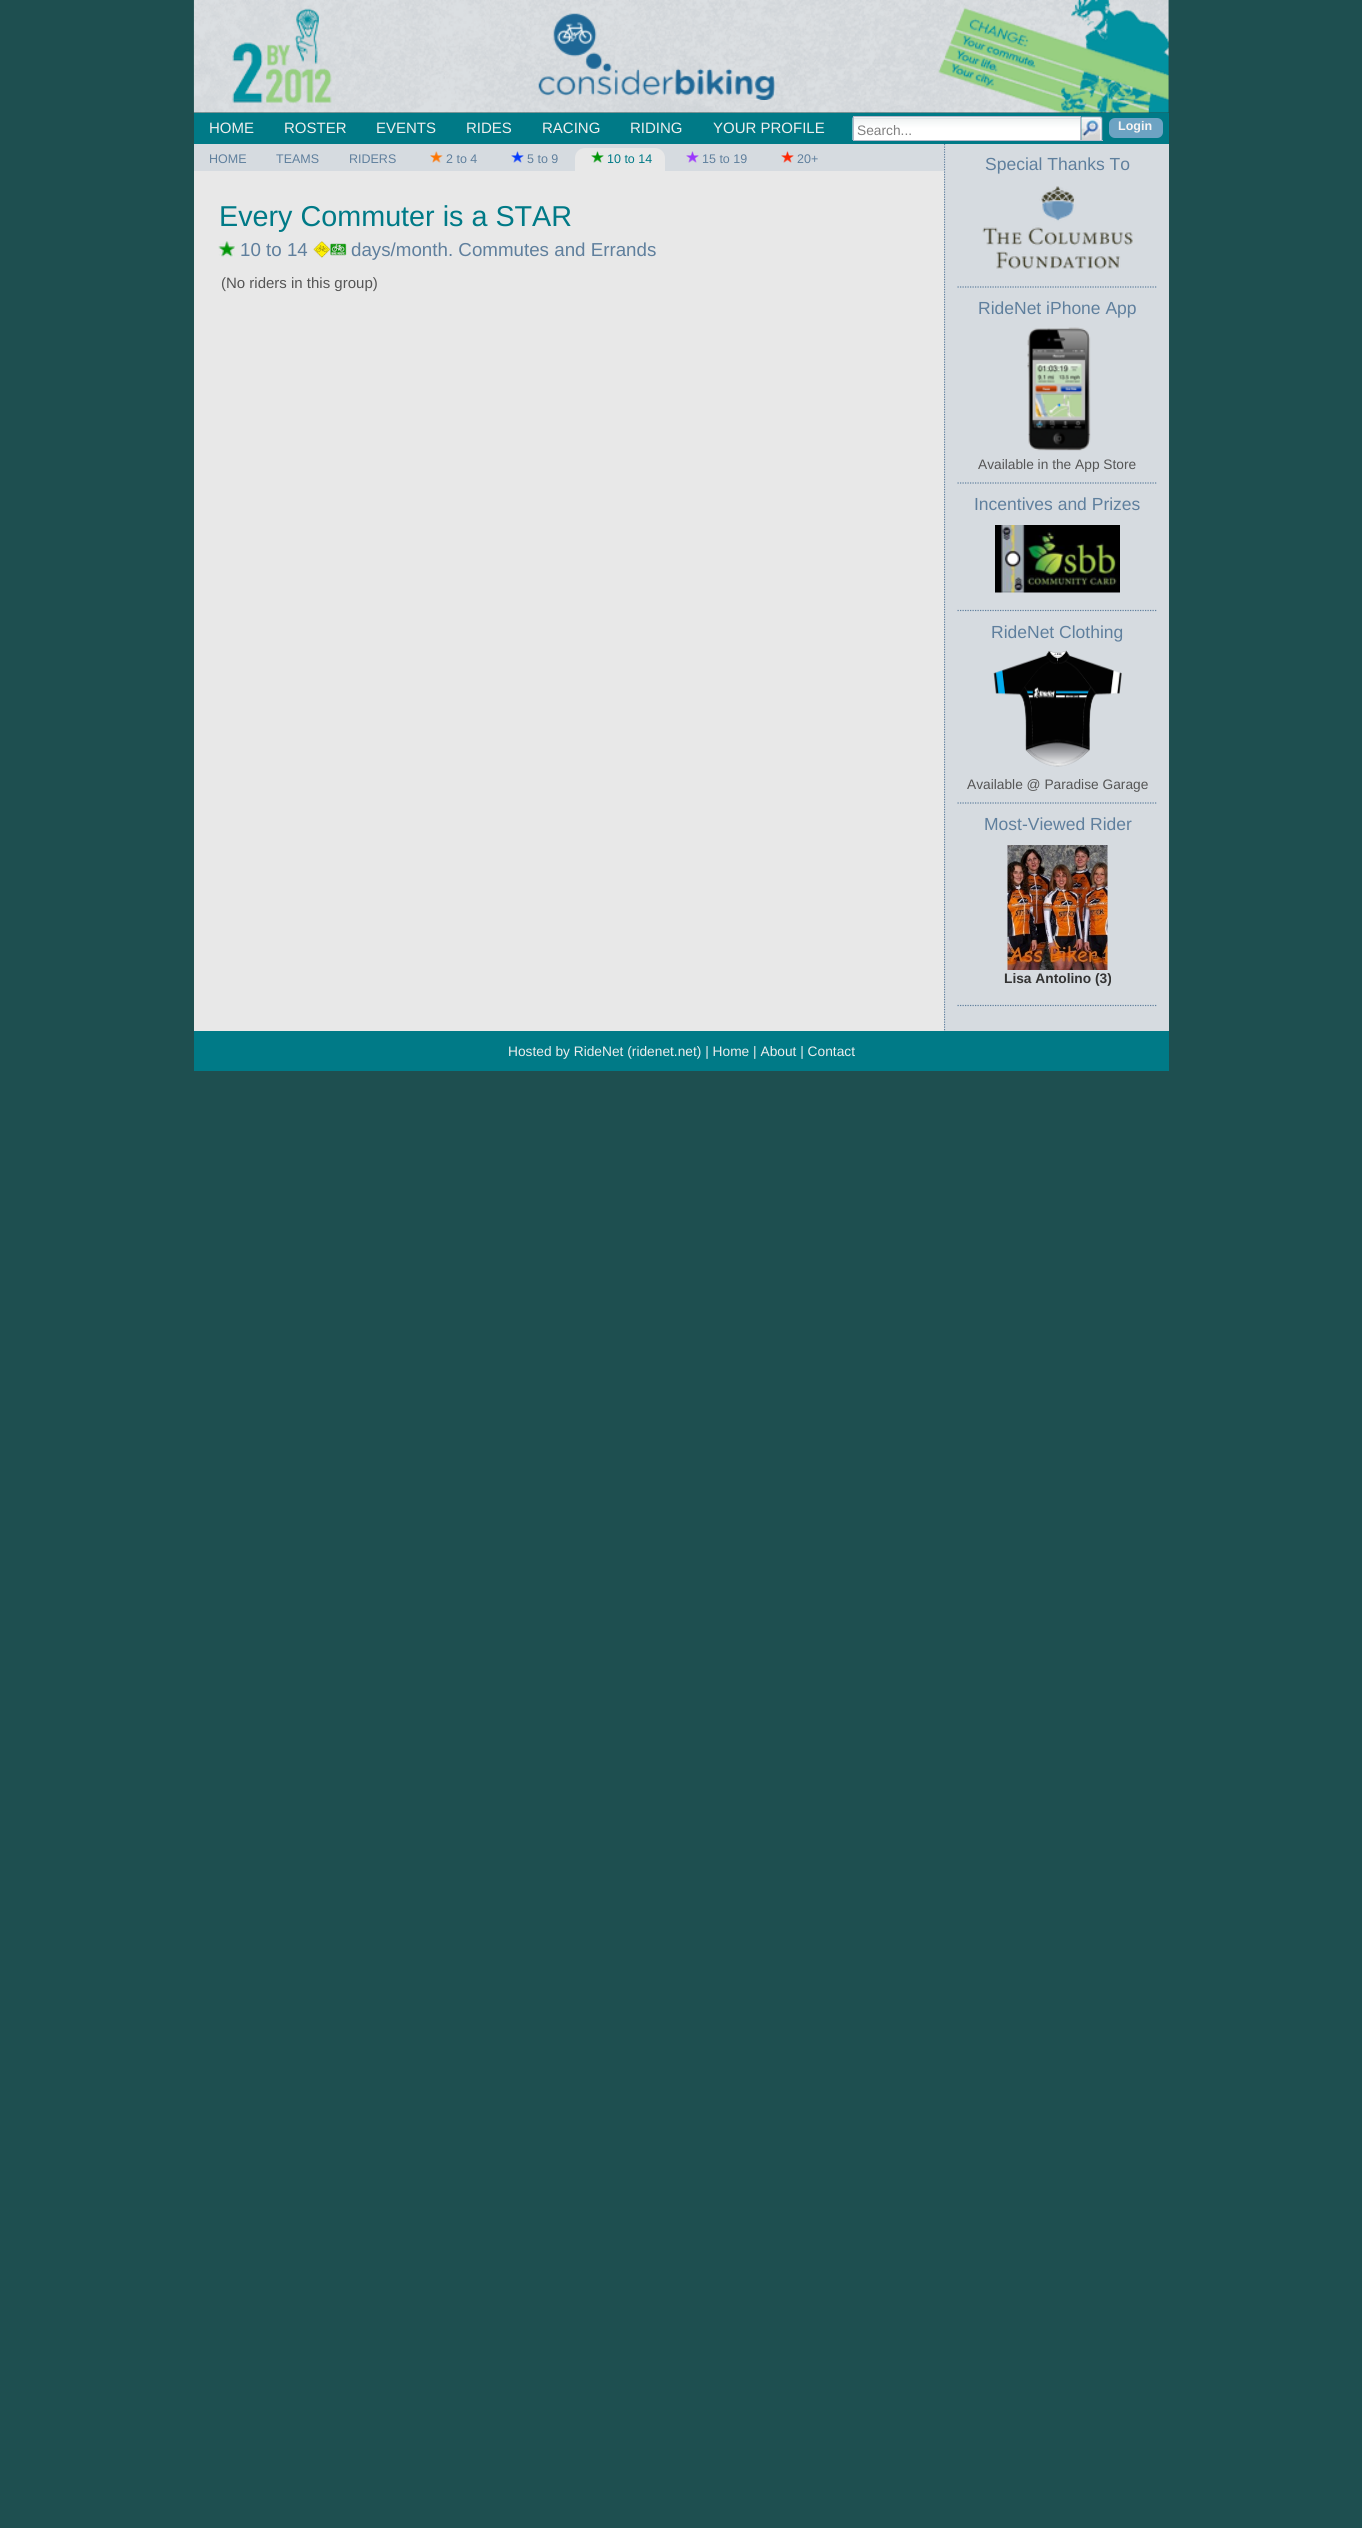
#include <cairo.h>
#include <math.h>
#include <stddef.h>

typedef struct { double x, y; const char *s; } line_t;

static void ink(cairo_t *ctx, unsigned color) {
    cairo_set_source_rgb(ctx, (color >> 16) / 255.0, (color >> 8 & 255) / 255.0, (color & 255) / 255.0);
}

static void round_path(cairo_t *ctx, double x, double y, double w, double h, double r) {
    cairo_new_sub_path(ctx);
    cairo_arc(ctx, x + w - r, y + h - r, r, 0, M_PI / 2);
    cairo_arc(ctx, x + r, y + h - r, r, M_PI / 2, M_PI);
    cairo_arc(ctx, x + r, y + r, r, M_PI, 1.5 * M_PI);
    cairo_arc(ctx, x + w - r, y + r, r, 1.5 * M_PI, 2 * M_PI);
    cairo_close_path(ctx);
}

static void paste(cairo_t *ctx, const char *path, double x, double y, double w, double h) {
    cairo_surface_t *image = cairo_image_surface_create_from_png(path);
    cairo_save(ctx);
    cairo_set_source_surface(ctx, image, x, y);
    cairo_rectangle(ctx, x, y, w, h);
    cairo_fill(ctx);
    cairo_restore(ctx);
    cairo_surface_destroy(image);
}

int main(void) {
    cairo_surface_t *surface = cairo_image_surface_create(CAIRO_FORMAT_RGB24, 1362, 2528);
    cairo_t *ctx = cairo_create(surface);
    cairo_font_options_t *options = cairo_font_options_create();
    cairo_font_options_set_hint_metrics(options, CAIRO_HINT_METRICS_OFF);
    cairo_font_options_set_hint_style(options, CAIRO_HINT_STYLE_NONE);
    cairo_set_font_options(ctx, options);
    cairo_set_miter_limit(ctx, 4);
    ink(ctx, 0x1E4F50);
    cairo_paint(ctx);
    paste(ctx, "media/1.png", 193, 0, 976, 113);
    paste(ctx, "media/2.png", 538, 13, 237, 87);
    ink(ctx, 0x007A87);
    cairo_rectangle(ctx, 194, 113, 975, 31);
    cairo_fill(ctx);
    cairo_select_font_face(ctx, "Liberation Sans", CAIRO_FONT_SLANT_NORMAL, CAIRO_FONT_WEIGHT_NORMAL);
    cairo_set_font_size(ctx, 15);
    ink(ctx, 0xEEEEEE);
    {
        static const line_t items[] = {
            {209, 133, "HOME"},
            {284, 133, "ROSTER"},
            {376, 133, "EVENTS"},
            {466, 133, "RIDES"},
            {542, 133, "RACING"},
            {630, 133, "RIDING"},
            {713, 133, "YOUR PROFILE"},
        };
        for (size_t i = 0; i < sizeof items / sizeof *items; i++) {
            cairo_move_to(ctx, items[i].x, items[i].y);
            cairo_show_text(ctx, items[i].s);
        }
    }
    ink(ctx, 0xFFFFFF);
    cairo_rectangle(ctx, 854, 117, 226, 1);
    cairo_fill(ctx);
    paste(ctx, "media/3.png", 852, 117, 230, 23);
    cairo_rectangle(ctx, 853.5, 116.5, 227, 24);
    ink(ctx, 0xB5B8C8);
    cairo_set_line_width(ctx, 1);
    cairo_stroke(ctx);
    cairo_set_font_size(ctx, 13.75);
    ink(ctx, 0x808080);
    cairo_move_to(ctx, 857, 135);
    cairo_show_text(ctx, "Search...");
    paste(ctx, "media/4.png", 1081, 116, 22, 24);
    ink(ctx, 0xB5B8C8);
    cairo_rectangle(ctx, 1081, 140, 22, 1);
    cairo_fill(ctx);
    ink(ctx, 0x6DA3C3);
    round_path(ctx, 1109, 118, 54, 20, 6);
    cairo_fill(ctx);
    cairo_select_font_face(ctx, "Liberation Sans", CAIRO_FONT_SLANT_NORMAL, CAIRO_FONT_WEIGHT_BOLD);
    cairo_set_font_size(ctx, 12.5);
    ink(ctx, 0xF8F4F3);
    cairo_move_to(ctx, 1118, 130);
    cairo_show_text(ctx, "Login");
    ink(ctx, 0xD6DBE0);
    cairo_rectangle(ctx, 944, 144, 225, 887);
    cairo_fill(ctx);
    cairo_save(ctx);
    cairo_rectangle(ctx, 194, 0, 975, 1071);
    cairo_clip(ctx);
    cairo_new_path(ctx);
    cairo_move_to(ctx, 944.5, 144);
    cairo_line_to(ctx, 944.5, 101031);
    ink(ctx, 0x5F7F9D);
    cairo_set_line_width(ctx, 1.2);
    cairo_set_dash(ctx, (double[]){1.25, 1.25}, 2, 0);
    cairo_stroke(ctx);
    cairo_restore(ctx);
    cairo_rectangle(ctx, 194, 144, 750, 27);
    cairo_fill(ctx);
    cairo_select_font_face(ctx, "Liberation Sans", CAIRO_FONT_SLANT_NORMAL, CAIRO_FONT_WEIGHT_NORMAL);
    ink(ctx, 0x5F7F9D);
    {
        static const line_t items[] = {
            {209, 163, "HOME"},
            {276, 163, "TEAMS"},
            {349, 163, "RIDERS"},
        };
        for (size_t i = 0; i < sizeof items / sizeof *items; i++) {
            cairo_move_to(ctx, items[i].x, items[i].y);
            cairo_show_text(ctx, items[i].s);
        }
    }
    paste(ctx, "media/5.png", 430, 151, 13, 12);
    cairo_move_to(ctx, 446, 163);
    cairo_show_text(ctx, "2 to 4");
    paste(ctx, "media/6.png", 511, 151, 13, 12);
    cairo_move_to(ctx, 527, 163);
    cairo_show_text(ctx, "5 to 9");
    ink(ctx, 0xE8E8E8);
    cairo_new_path(ctx);
    cairo_move_to(ctx, 585, 148);
    cairo_line_to(ctx, 655, 148);
    cairo_curve_to(ctx, 660.5, 148, 665, 152.5, 665, 158);
    cairo_line_to(ctx, 665, 171);
    cairo_line_to(ctx, 575, 171);
    cairo_line_to(ctx, 575, 158);
    cairo_curve_to(ctx, 575, 152.5, 579.5, 148, 585, 148);
    cairo_close_path(ctx);
    cairo_fill(ctx);
    paste(ctx, "media/7.png", 591, 151, 13, 12);
    ink(ctx, 0x007A87);
    cairo_move_to(ctx, 607, 163);
    cairo_show_text(ctx, "10 to 14");
    paste(ctx, "media/8.png", 686, 151, 13, 12);
    ink(ctx, 0x5F7F9D);
    cairo_move_to(ctx, 702, 163);
    cairo_show_text(ctx, "15 to 19");
    paste(ctx, "media/9.png", 781, 151, 13, 12);
    cairo_move_to(ctx, 797, 163);
    cairo_show_text(ctx, "20+");
    cairo_new_path(ctx);
    cairo_move_to(ctx, 957.5, 287);
    cairo_line_to(ctx, 1157.5, 287);
    cairo_set_line_width(ctx, 1.2);
    cairo_set_dash(ctx, (double[]){1.25, 1.25}, 2, 0);
    cairo_stroke(ctx);
    cairo_set_font_size(ctx, 17.5);
    cairo_move_to(ctx, 985, 170);
    cairo_show_text(ctx, "Special Thanks To");
    paste(ctx, "media/10.png", 982, 186, 151, 83);
    cairo_new_path(ctx);
    cairo_move_to(ctx, 957.5, 483);
    cairo_line_to(ctx, 1157.5, 483);
    cairo_stroke(ctx);
    cairo_move_to(ctx, 978, 314);
    cairo_show_text(ctx, "RideNet iPhone App");
    paste(ctx, "media/11.png", 1027, 327, 64, 124);
    cairo_set_font_size(ctx, 13.75);
    ink(ctx, 0x555555);
    cairo_move_to(ctx, 978, 469);
    cairo_show_text(ctx, "Available in the App Store");
    cairo_new_path(ctx);
    cairo_move_to(ctx, 957.5, 610.5);
    cairo_line_to(ctx, 1157.5, 610.5);
    ink(ctx, 0x5F7F9D);
    cairo_stroke(ctx);
    cairo_set_font_size(ctx, 17.5);
    cairo_move_to(ctx, 974, 510);
    cairo_show_text(ctx, "Incentives and Prizes");
    paste(ctx, "media/12.png", 995, 525, 125, 68);
    cairo_new_path(ctx);
    cairo_move_to(ctx, 957.5, 803);
    cairo_line_to(ctx, 1157.5, 803);
    cairo_stroke(ctx);
    cairo_move_to(ctx, 991, 638);
    cairo_show_text(ctx, "RideNet Clothing");
    paste(ctx, "media/13.png", 993, 650, 129, 117);
    cairo_set_font_size(ctx, 13.75);
    ink(ctx, 0x555555);
    cairo_move_to(ctx, 967, 789);
    cairo_show_text(ctx, "Available @ Paradise Garage");
    cairo_new_path(ctx);
    cairo_move_to(ctx, 957.5, 1005.5);
    cairo_line_to(ctx, 1157.5, 1005.5);
    ink(ctx, 0x5F7F9D);
    cairo_stroke(ctx);
    cairo_set_font_size(ctx, 17.5);
    cairo_move_to(ctx, 984, 830);
    cairo_show_text(ctx, "Most-Viewed Rider");
    paste(ctx, "media/14.png", 1007, 845, 101, 125);
    cairo_select_font_face(ctx, "Liberation Sans", CAIRO_FONT_SLANT_NORMAL, CAIRO_FONT_WEIGHT_BOLD);
    cairo_set_font_size(ctx, 13.75);
    ink(ctx, 0x333333);
    cairo_move_to(ctx, 1004, 983);
    cairo_show_text(ctx, "Lisa Antolino (3)");
    ink(ctx, 0xE8E8E8);
    cairo_rectangle(ctx, 194, 171, 750, 860);
    cairo_fill(ctx);
    cairo_select_font_face(ctx, "Liberation Sans", CAIRO_FONT_SLANT_NORMAL, CAIRO_FONT_WEIGHT_NORMAL);
    cairo_set_font_size(ctx, 28.75);
    ink(ctx, 0x007A87);
    cairo_move_to(ctx, 219, 226);
    cairo_show_text(ctx, "Every Commuter is a STAR");
    paste(ctx, "media/15.png", 218, 241, 17, 16);
    cairo_set_font_size(ctx, 18.75);
    ink(ctx, 0x5F7F9D);
    cairo_move_to(ctx, 240, 256);
    cairo_show_text(ctx, "10 to 14");
    paste(ctx, "media/16.png", 313, 241, 17, 17);
    paste(ctx, "media/17.png", 330, 243, 17, 13);
    cairo_move_to(ctx, 351, 256);
    cairo_show_text(ctx, "days/month. Commutes and Errands");
    cairo_set_font_size(ctx, 15);
    ink(ctx, 0x555555);
    cairo_move_to(ctx, 221, 288);
    cairo_show_text(ctx, "(No riders in this group)");
    ink(ctx, 0x007A87);
    cairo_rectangle(ctx, 194, 1031, 975, 40);
    cairo_fill(ctx);
    cairo_set_font_size(ctx, 13.75);
    ink(ctx, 0xEEEEEE);
    cairo_move_to(ctx, 508, 1056);
    cairo_show_text(ctx, "Hosted by RideNet (ridenet.net) | Home | About | Contact");
    cairo_surface_write_to_png(surface, "image.png");
    cairo_font_options_destroy(options);
    cairo_destroy(ctx);
    cairo_surface_destroy(surface);
    return 0;
}
